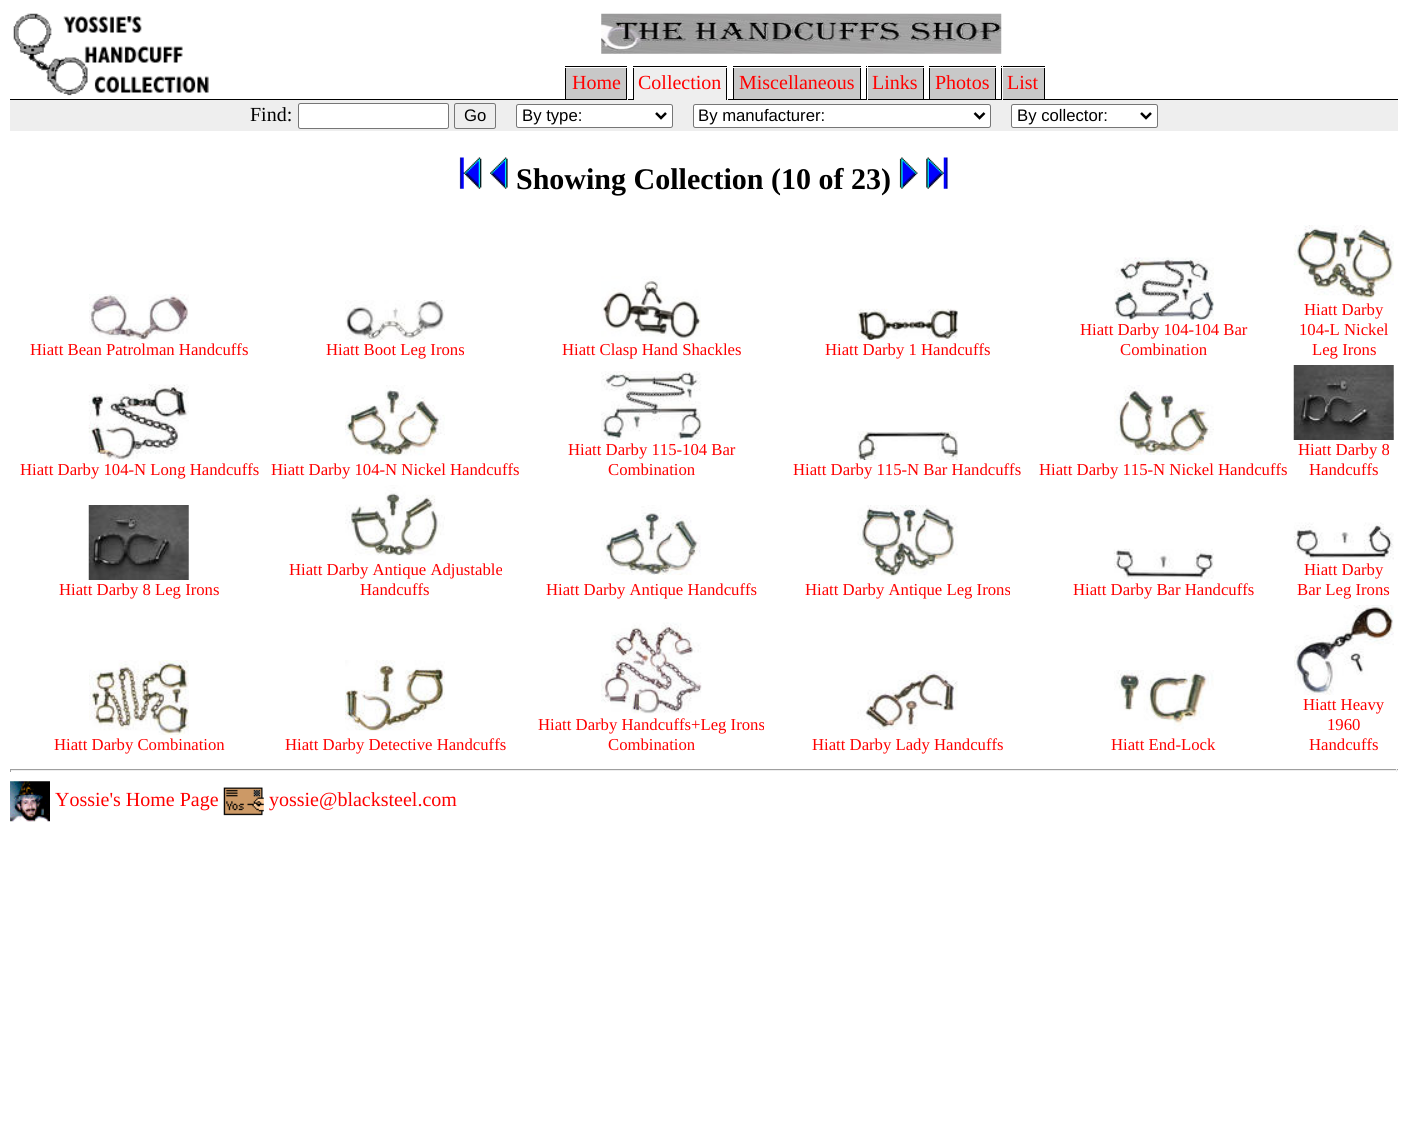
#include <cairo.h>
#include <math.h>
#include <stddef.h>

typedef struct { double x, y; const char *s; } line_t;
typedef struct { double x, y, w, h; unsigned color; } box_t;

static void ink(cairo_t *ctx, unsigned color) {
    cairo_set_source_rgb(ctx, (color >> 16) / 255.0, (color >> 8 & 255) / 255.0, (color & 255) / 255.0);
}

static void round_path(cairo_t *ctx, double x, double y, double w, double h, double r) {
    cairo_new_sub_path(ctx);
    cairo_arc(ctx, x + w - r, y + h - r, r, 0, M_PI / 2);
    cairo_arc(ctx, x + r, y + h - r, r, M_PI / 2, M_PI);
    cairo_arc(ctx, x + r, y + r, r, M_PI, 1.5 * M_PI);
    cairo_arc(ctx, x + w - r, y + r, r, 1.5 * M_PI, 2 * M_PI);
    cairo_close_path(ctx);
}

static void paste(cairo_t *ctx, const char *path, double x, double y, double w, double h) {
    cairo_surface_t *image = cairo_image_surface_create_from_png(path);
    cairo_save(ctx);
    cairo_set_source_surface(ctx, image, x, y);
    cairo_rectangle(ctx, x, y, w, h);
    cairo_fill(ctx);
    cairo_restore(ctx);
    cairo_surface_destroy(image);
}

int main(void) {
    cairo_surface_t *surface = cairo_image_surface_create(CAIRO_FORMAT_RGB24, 1407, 1139);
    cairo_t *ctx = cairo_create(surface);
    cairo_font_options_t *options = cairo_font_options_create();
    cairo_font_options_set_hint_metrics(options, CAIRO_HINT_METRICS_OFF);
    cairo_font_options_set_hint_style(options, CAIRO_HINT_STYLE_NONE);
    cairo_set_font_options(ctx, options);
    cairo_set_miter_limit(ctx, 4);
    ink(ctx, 0xFFFFFF);
    cairo_paint(ctx);
    paste(ctx, "media/1.png", 13, 13, 196, 83);
    ink(ctx, 0x000000);
    cairo_rectangle(ctx, 10, 99, 555, 1);
    cairo_fill(ctx);
    paste(ctx, "media/2.png", 601, 13, 401, 41);
    {
        static const box_t items[] = {
            {565, 66, 62, 1, 0x000000},
            {633, 66, 94, 1, 0x000000},
            {733, 66, 128, 1, 0x000000},
            {866, 66, 1, 1, 0x000000},
            {868, 66, 56, 1, 0x000000},
            {929, 66, 67, 1, 0x000000},
            {1001, 66, 1, 1, 0x000000},
            {1003, 66, 42, 1, 0x000000},
            {565, 68, 1, 32, 0x000000},
            {566, 68, 60, 31, 0xC8C8C8},
        };
        for (size_t i = 0; i < sizeof items / sizeof *items; i++) {
            ink(ctx, items[i].color);
            cairo_rectangle(ctx, items[i].x, items[i].y, items[i].w, items[i].h);
            cairo_fill(ctx);
        }
    }
    cairo_select_font_face(ctx, "Liberation Serif", CAIRO_FONT_SLANT_NORMAL, CAIRO_FONT_WEIGHT_NORMAL);
    cairo_set_font_size(ctx, 20);
    ink(ctx, 0xFF0000);
    cairo_move_to(ctx, 572, 89);
    cairo_show_text(ctx, "Home");
    {
        static const box_t items[] = {
            {626, 68, 1, 31, 0x000000},
            {633, 68, 1, 31, 0x000000},
            {634, 68, 92, 32, 0xEEEEEE},
        };
        for (size_t i = 0; i < sizeof items / sizeof *items; i++) {
            ink(ctx, items[i].color);
            cairo_rectangle(ctx, items[i].x, items[i].y, items[i].w, items[i].h);
            cairo_fill(ctx);
        }
    }
    ink(ctx, 0xFF0000);
    cairo_move_to(ctx, 638, 89);
    cairo_show_text(ctx, "Collection");
    {
        static const box_t items[] = {
            {726, 68, 1, 32, 0x000000},
            {733, 68, 1, 31, 0x000000},
            {734, 68, 126, 31, 0xC8C8C8},
        };
        for (size_t i = 0; i < sizeof items / sizeof *items; i++) {
            ink(ctx, items[i].color);
            cairo_rectangle(ctx, items[i].x, items[i].y, items[i].w, items[i].h);
            cairo_fill(ctx);
        }
    }
    ink(ctx, 0xFF0000);
    cairo_move_to(ctx, 739, 89);
    cairo_show_text(ctx, "Miscellaneous");
    {
        static const box_t items[] = {
            {860, 68, 1, 31, 0x000000},
            {866, 68, 1, 31, 0x000000},
            {868, 68, 55, 31, 0xC8C8C8},
        };
        for (size_t i = 0; i < sizeof items / sizeof *items; i++) {
            ink(ctx, items[i].color);
            cairo_rectangle(ctx, items[i].x, items[i].y, items[i].w, items[i].h);
            cairo_fill(ctx);
        }
    }
    ink(ctx, 0xFF0000);
    cairo_move_to(ctx, 872, 89);
    cairo_show_text(ctx, "Links");
    {
        static const box_t items[] = {
            {923, 68, 1, 31, 0x000000},
            {929, 68, 1, 31, 0x000000},
            {930, 68, 65, 31, 0xC8C8C8},
        };
        for (size_t i = 0; i < sizeof items / sizeof *items; i++) {
            ink(ctx, items[i].color);
            cairo_rectangle(ctx, items[i].x, items[i].y, items[i].w, items[i].h);
            cairo_fill(ctx);
        }
    }
    ink(ctx, 0xFF0000);
    cairo_move_to(ctx, 935, 89);
    cairo_show_text(ctx, "Photos");
    {
        static const box_t items[] = {
            {995, 68, 1, 31, 0x000000},
            {1001, 68, 1, 31, 0x000000},
            {1003, 68, 41, 31, 0xC8C8C8},
        };
        for (size_t i = 0; i < sizeof items / sizeof *items; i++) {
            ink(ctx, items[i].color);
            cairo_rectangle(ctx, items[i].x, items[i].y, items[i].w, items[i].h);
            cairo_fill(ctx);
        }
    }
    ink(ctx, 0xFF0000);
    cairo_move_to(ctx, 1007, 89);
    cairo_show_text(ctx, "List");
    {
        static const box_t items[] = {
            {1044, 68, 1, 31, 0x000000},
            {566, 99, 61, 1, 0x000000},
            {628, 99, 6, 1, 0x000000},
            {728, 99, 139, 1, 0x000000},
            {868, 99, 134, 1, 0x000000},
            {1003, 99, 395, 1, 0x000000},
            {10, 100, 1388, 31, 0xEEEEEE},
        };
        for (size_t i = 0; i < sizeof items / sizeof *items; i++) {
            ink(ctx, items[i].color);
            cairo_rectangle(ctx, items[i].x, items[i].y, items[i].w, items[i].h);
            cairo_fill(ctx);
        }
    }
    ink(ctx, 0x000000);
    cairo_move_to(ctx, 250, 121);
    cairo_show_text(ctx, "Find:");
    ink(ctx, 0xFFFFFF);
    round_path(ctx, 298.5, 103.5, 150, 25, 2);
    cairo_fill_preserve(ctx);
    ink(ctx, 0x767676);
    cairo_set_line_width(ctx, 1);
    cairo_stroke(ctx);
    round_path(ctx, 454.5, 103.5, 41, 25, 2);
    cairo_stroke(ctx);
    cairo_select_font_face(ctx, "Liberation Sans", CAIRO_FONT_SLANT_NORMAL, CAIRO_FONT_WEIGHT_NORMAL);
    cairo_set_font_size(ctx, 16.7);
    ink(ctx, 0x000000);
    cairo_move_to(ctx, 464, 121);
    cairo_show_text(ctx, "Go");
    ink(ctx, 0xFFFFFF);
    round_path(ctx, 516.5, 104.5, 156, 23, 2);
    cairo_fill_preserve(ctx);
    ink(ctx, 0x767676);
    cairo_stroke(ctx);
    cairo_new_path(ctx);
    cairo_move_to(ctx, 656, 113);
    cairo_line_to(ctx, 661, 118);
    cairo_line_to(ctx, 666, 113);
    ink(ctx, 0x000000);
    cairo_set_line_width(ctx, 2.5);
    cairo_stroke(ctx);
    cairo_move_to(ctx, 522, 121);
    cairo_show_text(ctx, "By type:");
    ink(ctx, 0xFFFFFF);
    round_path(ctx, 693.5, 104.5, 297, 23, 2);
    cairo_fill_preserve(ctx);
    ink(ctx, 0x767676);
    cairo_set_line_width(ctx, 1);
    cairo_stroke(ctx);
    cairo_new_path(ctx);
    cairo_move_to(ctx, 974.5, 113);
    cairo_line_to(ctx, 979.5, 118);
    cairo_line_to(ctx, 984.5, 113);
    ink(ctx, 0x000000);
    cairo_set_line_width(ctx, 2.5);
    cairo_stroke(ctx);
    cairo_move_to(ctx, 698, 121);
    cairo_show_text(ctx, "By manufacturer:");
    ink(ctx, 0xFFFFFF);
    round_path(ctx, 1011.5, 104.5, 146, 23, 2);
    cairo_fill_preserve(ctx);
    ink(ctx, 0x767676);
    cairo_set_line_width(ctx, 1);
    cairo_stroke(ctx);
    cairo_new_path(ctx);
    cairo_move_to(ctx, 1141, 113);
    cairo_line_to(ctx, 1146, 118);
    cairo_line_to(ctx, 1151, 113);
    ink(ctx, 0x000000);
    cairo_set_line_width(ctx, 2.5);
    cairo_stroke(ctx);
    cairo_move_to(ctx, 1017, 121);
    cairo_show_text(ctx, "By collector:");
    paste(ctx, "media/3.png", 459, 157, 23, 32);
    paste(ctx, "media/4.png", 490, 157, 18, 32);
    cairo_select_font_face(ctx, "Liberation Serif", CAIRO_FONT_SLANT_NORMAL, CAIRO_FONT_WEIGHT_BOLD);
    cairo_set_font_size(ctx, 30);
    cairo_move_to(ctx, 516, 189);
    cairo_show_text(ctx, "Showing Collection (10 of 23)");
    paste(ctx, "media/5.png", 899, 157, 19, 32);
    paste(ctx, "media/6.png", 926, 157, 22, 32);
    paste(ctx, "media/7.png", 89, 294, 100, 46);
    cairo_select_font_face(ctx, "Liberation Serif", CAIRO_FONT_SLANT_NORMAL, CAIRO_FONT_WEIGHT_NORMAL);
    cairo_set_font_size(ctx, 16.7);
    ink(ctx, 0xFF0000);
    cairo_move_to(ctx, 30, 355);
    cairo_show_text(ctx, "Hiatt Bean Patrolman Handcuffs");
    paste(ctx, "media/8.png", 345, 300, 100, 40);
    cairo_move_to(ctx, 326, 355);
    cairo_show_text(ctx, "Hiatt Boot Leg Irons");
    paste(ctx, "media/9.png", 601, 276, 100, 64);
    cairo_move_to(ctx, 562, 355);
    cairo_show_text(ctx, "Hiatt Clasp Hand Shackles");
    paste(ctx, "media/10.png", 857, 308, 101, 32);
    cairo_move_to(ctx, 825, 355);
    cairo_show_text(ctx, "Hiatt Darby 1 Handcuffs");
    paste(ctx, "media/11.png", 1114, 257, 100, 63);
    cairo_move_to(ctx, 1080, 335);
    cairo_show_text(ctx, "Hiatt Darby 104-104 Bar");
    cairo_move_to(ctx, 1120, 355);
    cairo_show_text(ctx, "Combination");
    paste(ctx, "media/12.png", 1293, 225, 101, 75);
    {
        static const line_t items[] = {
            {1304, 315, "Hiatt Darby"},
            {1299, 335, "104-L Nickel"},
            {1312, 355, "Leg Irons"},
        };
        for (size_t i = 0; i < sizeof items / sizeof *items; i++) {
            cairo_move_to(ctx, items[i].x, items[i].y);
            cairo_show_text(ctx, items[i].s);
        }
    }
    paste(ctx, "media/13.png", 88, 384, 101, 76);
    cairo_move_to(ctx, 20, 475);
    cairo_show_text(ctx, "Hiatt Darby 104-N Long Handcuffs");
    paste(ctx, "media/14.png", 345, 385, 100, 71);
    cairo_move_to(ctx, 271, 475);
    cairo_show_text(ctx, "Hiatt Darby 104-N Nickel Handcuffs");
    paste(ctx, "media/15.png", 601, 371, 101, 69);
    cairo_move_to(ctx, 568, 455);
    cairo_show_text(ctx, "Hiatt Darby 115-104 Bar");
    cairo_move_to(ctx, 608, 475);
    cairo_show_text(ctx, "Combination");
    paste(ctx, "media/16.png", 857, 431, 101, 29);
    cairo_move_to(ctx, 793, 475);
    cairo_show_text(ctx, "Hiatt Darby 115-N Bar Handcuffs");
    paste(ctx, "media/17.png", 1114, 385, 100, 70);
    cairo_move_to(ctx, 1039, 475);
    cairo_show_text(ctx, "Hiatt Darby 115-N Nickel Handcuffs");
    paste(ctx, "media/18.png", 1293, 365, 101, 75);
    cairo_move_to(ctx, 1298, 455);
    cairo_show_text(ctx, "Hiatt Darby 8");
    cairo_move_to(ctx, 1309, 475);
    cairo_show_text(ctx, "Handcuffs");
    paste(ctx, "media/19.png", 88, 505, 101, 75);
    cairo_move_to(ctx, 59, 595);
    cairo_show_text(ctx, "Hiatt Darby 8 Leg Irons");
    paste(ctx, "media/20.png", 345, 485, 100, 71);
    cairo_move_to(ctx, 289, 575);
    cairo_show_text(ctx, "Hiatt Darby Antique Adjustable");
    cairo_move_to(ctx, 360, 595);
    cairo_show_text(ctx, "Handcuffs");
    paste(ctx, "media/21.png", 601, 505, 100, 70);
    cairo_move_to(ctx, 546, 595);
    cairo_show_text(ctx, "Hiatt Darby Antique Handcuffs");
    paste(ctx, "media/22.png", 857, 505, 101, 72);
    cairo_move_to(ctx, 805, 595);
    cairo_show_text(ctx, "Hiatt Darby Antique Leg Irons");
    paste(ctx, "media/23.png", 1113, 548, 101, 31);
    cairo_move_to(ctx, 1073, 595);
    cairo_show_text(ctx, "Hiatt Darby Bar Handcuffs");
    paste(ctx, "media/24.png", 1293, 522, 101, 38);
    cairo_move_to(ctx, 1304, 575);
    cairo_show_text(ctx, "Hiatt Darby");
    cairo_move_to(ctx, 1297, 595);
    cairo_show_text(ctx, "Bar Leg Irons");
    paste(ctx, "media/25.png", 89, 660, 100, 75);
    cairo_move_to(ctx, 54, 750);
    cairo_show_text(ctx, "Hiatt Darby Combination");
    paste(ctx, "media/26.png", 345, 660, 100, 71);
    cairo_move_to(ctx, 285, 750);
    cairo_show_text(ctx, "Hiatt Darby Detective Handcuffs");
    paste(ctx, "media/27.png", 601, 622, 101, 92);
    cairo_move_to(ctx, 538, 730);
    cairo_show_text(ctx, "Hiatt Darby Handcuffs+Leg Irons");
    cairo_move_to(ctx, 608, 750);
    cairo_show_text(ctx, "Combination");
    paste(ctx, "media/28.png", 857, 670, 101, 60);
    cairo_move_to(ctx, 812, 750);
    cairo_show_text(ctx, "Hiatt Darby Lady Handcuffs");
    paste(ctx, "media/29.png", 1114, 670, 100, 60);
    cairo_move_to(ctx, 1111, 750);
    cairo_show_text(ctx, "Hiatt End-Lock");
    paste(ctx, "media/30.png", 1294, 605, 100, 90);
    {
        static const line_t items[] = {
            {1303, 710, "Hiatt Heavy"},
            {1327, 730, "1960"},
            {1309, 750, "Handcuffs"},
        };
        for (size_t i = 0; i < sizeof items / sizeof *items; i++) {
            cairo_move_to(ctx, items[i].x, items[i].y);
            cairo_show_text(ctx, items[i].s);
        }
    }
    {
        static const box_t items[] = {
            {10, 769, 1388, 1, 0x9F9F9F},
            {1396, 769, 1, 3, 0xEEEEEE},
            {10, 770, 1388, 1, 0xEEEEEE},
            {10, 769, 1, 3, 0x9F9F9F},
        };
        for (size_t i = 0; i < sizeof items / sizeof *items; i++) {
            ink(ctx, items[i].color);
            cairo_rectangle(ctx, items[i].x, items[i].y, items[i].w, items[i].h);
            cairo_fill(ctx);
        }
    }
    paste(ctx, "media/31.png", 10, 781, 40, 41);
    cairo_set_font_size(ctx, 20);
    ink(ctx, 0xFF0000);
    cairo_move_to(ctx, 55, 806);
    cairo_show_text(ctx, "Yossie's Home Page");
    paste(ctx, "media/32.png", 223, 787, 41, 29);
    cairo_move_to(ctx, 269, 806);
    cairo_show_text(ctx, "yossie@blacksteel.com");
    cairo_surface_write_to_png(surface, "image.png");
    cairo_font_options_destroy(options);
    cairo_destroy(ctx);
    cairo_surface_destroy(surface);
    return 0;
}
